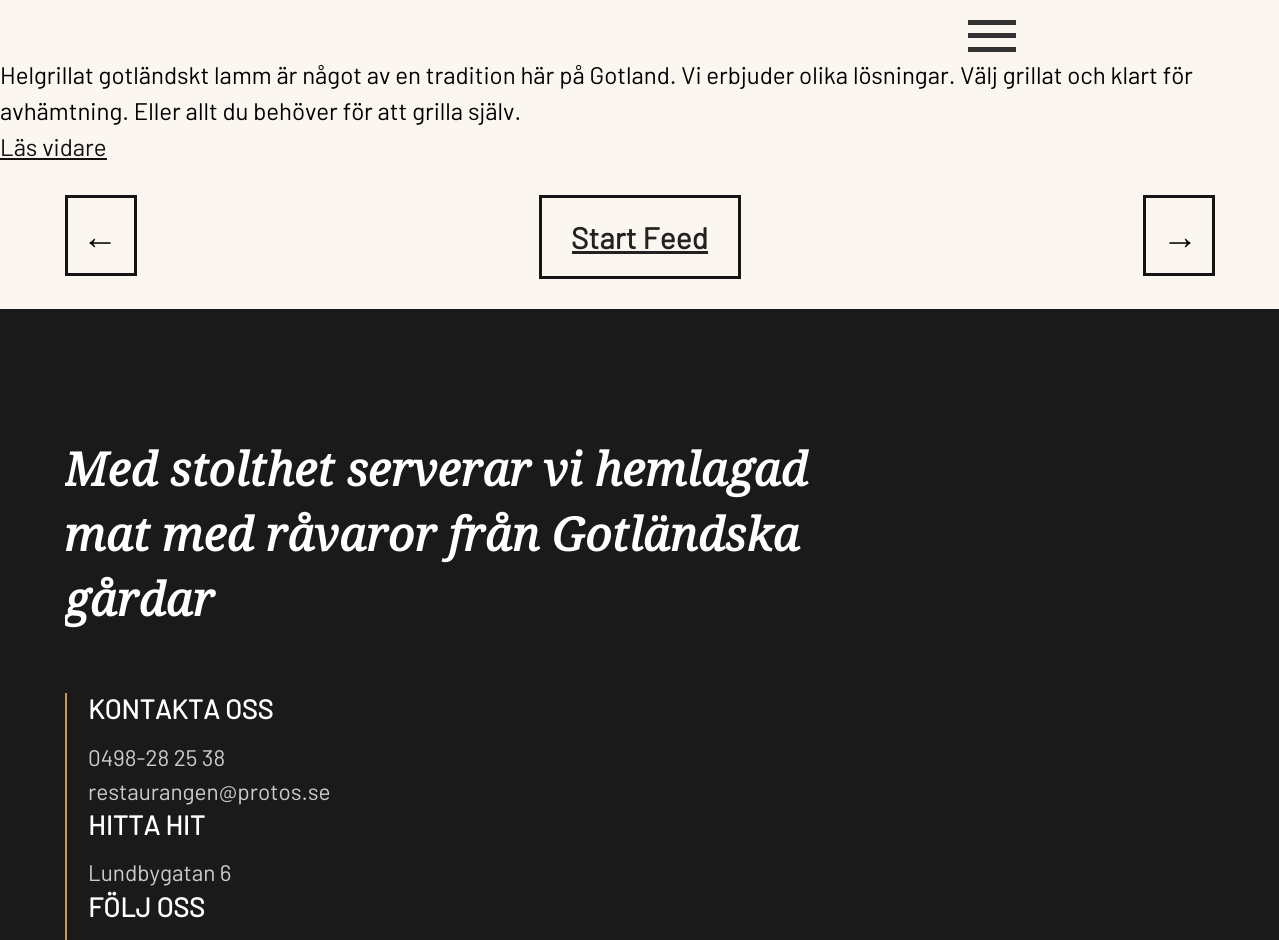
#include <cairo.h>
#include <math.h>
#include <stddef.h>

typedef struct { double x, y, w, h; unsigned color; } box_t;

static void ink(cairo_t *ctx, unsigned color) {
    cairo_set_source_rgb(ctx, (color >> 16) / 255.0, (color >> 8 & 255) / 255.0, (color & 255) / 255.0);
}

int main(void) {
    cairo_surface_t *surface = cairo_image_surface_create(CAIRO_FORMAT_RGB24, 1279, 940);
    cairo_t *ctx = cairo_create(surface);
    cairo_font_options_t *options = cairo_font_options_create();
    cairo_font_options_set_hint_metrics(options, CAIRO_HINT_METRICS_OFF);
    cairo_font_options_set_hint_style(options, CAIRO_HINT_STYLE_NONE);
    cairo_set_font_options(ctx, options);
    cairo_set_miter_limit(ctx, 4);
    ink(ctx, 0xFBF6EF);
    cairo_paint(ctx);
    {
        static const box_t items[] = {
            {968, 20, 48, 5, 0x333333},
            {968, 33, 48, 5, 0x333333},
            {968, 47, 48, 5, 0x333333},
        };
        for (size_t i = 0; i < sizeof items / sizeof *items; i++) {
            ink(ctx, items[i].color);
            cairo_rectangle(ctx, items[i].x, items[i].y, items[i].w, items[i].h);
            cairo_fill(ctx);
        }
    }
    cairo_select_font_face(ctx, "Barlow", CAIRO_FONT_SLANT_NORMAL, CAIRO_FONT_WEIGHT_NORMAL);
    cairo_set_font_size(ctx, 24);
    ink(ctx, 0x000000);
    cairo_move_to(ctx, 0, 84);
    cairo_show_text(ctx, "Helgrillat gotländskt lamm är något av en tradition här på Gotland. Vi erbjuder olika lösningar. Välj grillat och klart för");
    cairo_move_to(ctx, 0, 120);
    cairo_show_text(ctx, "avhämtning. Eller allt du behöver för att grilla själv.");
    ink(ctx, 0x111111);
    cairo_move_to(ctx, 0, 156);
    cairo_show_text(ctx, "Läs vidare");
    cairo_rectangle(ctx, 0, 158, 107, 2);
    cairo_fill(ctx);
    cairo_rectangle(ctx, 66.5, 196.5, 69, 78);
    ink(ctx, 0x161414);
    cairo_set_line_width(ctx, 3);
    cairo_stroke(ctx);
    cairo_select_font_face(ctx, "Liberation Serif", CAIRO_FONT_SLANT_NORMAL, CAIRO_FONT_WEIGHT_NORMAL);
    cairo_set_font_size(ctx, 36);
    ink(ctx, 0x000000);
    cairo_move_to(ctx, 82, 249);
    cairo_show_text(ctx, "←");
    cairo_rectangle(ctx, 540.5, 196.5, 199, 81);
    ink(ctx, 0x161414);
    cairo_stroke(ctx);
    cairo_select_font_face(ctx, "Barlow", CAIRO_FONT_SLANT_NORMAL, CAIRO_FONT_WEIGHT_BOLD);
    cairo_set_font_size(ctx, 30);
    ink(ctx, 0x222222);
    cairo_move_to(ctx, 571, 249);
    cairo_show_text(ctx, "Start Feed");
    cairo_rectangle(ctx, 572, 251, 136, 3);
    cairo_fill(ctx);
    cairo_rectangle(ctx, 1144.5, 196.5, 69, 78);
    ink(ctx, 0x161414);
    cairo_stroke(ctx);
    cairo_select_font_face(ctx, "Liberation Serif", CAIRO_FONT_SLANT_NORMAL, CAIRO_FONT_WEIGHT_NORMAL);
    cairo_set_font_size(ctx, 36);
    ink(ctx, 0x000000);
    cairo_move_to(ctx, 1162, 249);
    cairo_show_text(ctx, "→");
    ink(ctx, 0x1A1A1A);
    cairo_rectangle(ctx, 0, 309, 1279, 631);
    cairo_fill(ctx);
    cairo_save(ctx);
    cairo_rectangle(ctx, 65, 437, 1150, 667);
    cairo_clip(ctx);
    cairo_select_font_face(ctx, "Noto Serif", CAIRO_FONT_SLANT_ITALIC, CAIRO_FONT_WEIGHT_BOLD);
    cairo_set_font_size(ctx, 46.5);
    ink(ctx, 0xFFFFFF);
    cairo_move_to(ctx, 64, 486);
    cairo_show_text(ctx, "Med stolthet serverar vi hemlagad");
    cairo_restore(ctx);
    cairo_select_font_face(ctx, "Noto Serif", CAIRO_FONT_SLANT_ITALIC, CAIRO_FONT_WEIGHT_BOLD);
    cairo_set_font_size(ctx, 46.5);
    ink(ctx, 0xFFFFFF);
    cairo_move_to(ctx, 64, 551);
    cairo_show_text(ctx, "mat med råvaror från Gotländska");
    cairo_save(ctx);
    cairo_rectangle(ctx, 65, 437, 1150, 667);
    cairo_clip(ctx);
    cairo_move_to(ctx, 64, 616);
    cairo_show_text(ctx, "gårdar");
    cairo_restore(ctx);
    ink(ctx, 0xC49B56);
    cairo_rectangle(ctx, 65, 693, 2, 247);
    cairo_fill(ctx);
    cairo_select_font_face(ctx, "Barlow", CAIRO_FONT_SLANT_NORMAL, CAIRO_FONT_WEIGHT_BOLD);
    cairo_set_font_size(ctx, 27);
    ink(ctx, 0xFFFFFF);
    cairo_move_to(ctx, 88, 719);
    cairo_show_text(ctx, "KONTAKTA OSS");
    cairo_select_font_face(ctx, "Barlow", CAIRO_FONT_SLANT_NORMAL, CAIRO_FONT_WEIGHT_NORMAL);
    cairo_set_font_size(ctx, 22.5);
    ink(ctx, 0xCCCCCC);
    cairo_move_to(ctx, 88, 766);
    cairo_show_text(ctx, "0498-28 25 38");
    cairo_move_to(ctx, 88, 800);
    cairo_show_text(ctx, "restaurangen@protos.se");
    cairo_select_font_face(ctx, "Barlow", CAIRO_FONT_SLANT_NORMAL, CAIRO_FONT_WEIGHT_BOLD);
    cairo_set_font_size(ctx, 27);
    ink(ctx, 0xFFFFFF);
    cairo_move_to(ctx, 88, 835);
    cairo_show_text(ctx, "HITTA HIT");
    cairo_select_font_face(ctx, "Barlow", CAIRO_FONT_SLANT_NORMAL, CAIRO_FONT_WEIGHT_NORMAL);
    cairo_set_font_size(ctx, 22.5);
    ink(ctx, 0xCCCCCC);
    cairo_move_to(ctx, 88, 881);
    cairo_show_text(ctx, "Lundbygatan 6");
    cairo_select_font_face(ctx, "Barlow", CAIRO_FONT_SLANT_NORMAL, CAIRO_FONT_WEIGHT_BOLD);
    cairo_set_font_size(ctx, 27);
    ink(ctx, 0xFFFFFF);
    cairo_move_to(ctx, 88, 917);
    cairo_show_text(ctx, "FÖLJ OSS");
    cairo_surface_write_to_png(surface, "image.png");
    cairo_font_options_destroy(options);
    cairo_destroy(ctx);
    cairo_surface_destroy(surface);
    return 0;
}
